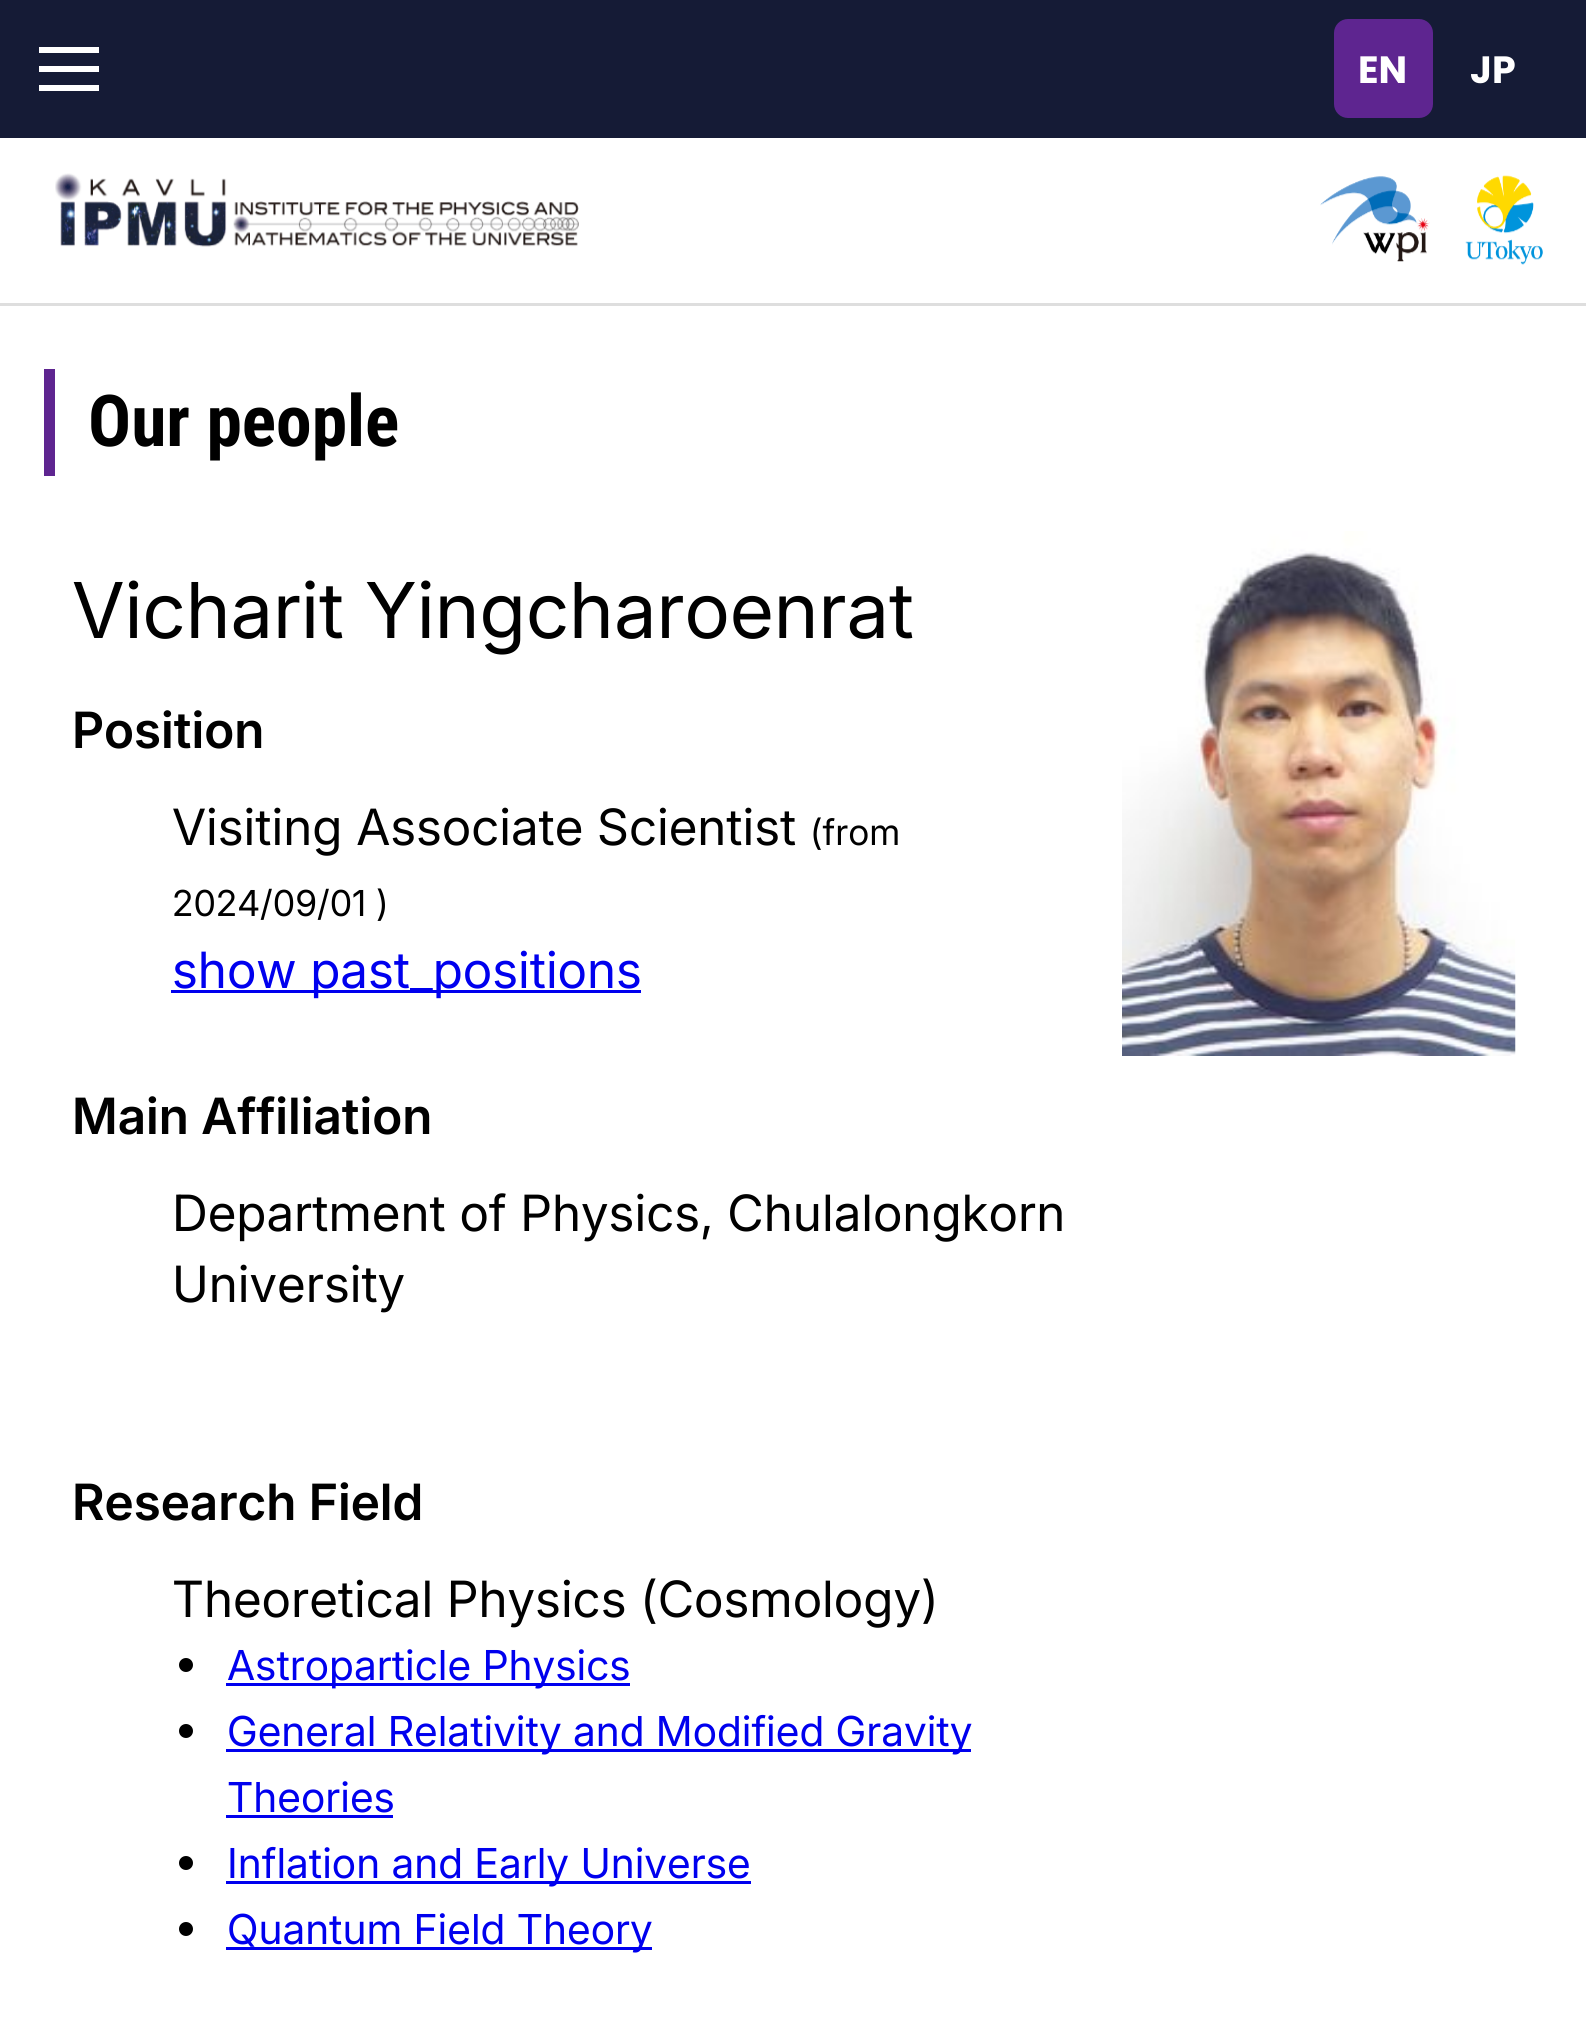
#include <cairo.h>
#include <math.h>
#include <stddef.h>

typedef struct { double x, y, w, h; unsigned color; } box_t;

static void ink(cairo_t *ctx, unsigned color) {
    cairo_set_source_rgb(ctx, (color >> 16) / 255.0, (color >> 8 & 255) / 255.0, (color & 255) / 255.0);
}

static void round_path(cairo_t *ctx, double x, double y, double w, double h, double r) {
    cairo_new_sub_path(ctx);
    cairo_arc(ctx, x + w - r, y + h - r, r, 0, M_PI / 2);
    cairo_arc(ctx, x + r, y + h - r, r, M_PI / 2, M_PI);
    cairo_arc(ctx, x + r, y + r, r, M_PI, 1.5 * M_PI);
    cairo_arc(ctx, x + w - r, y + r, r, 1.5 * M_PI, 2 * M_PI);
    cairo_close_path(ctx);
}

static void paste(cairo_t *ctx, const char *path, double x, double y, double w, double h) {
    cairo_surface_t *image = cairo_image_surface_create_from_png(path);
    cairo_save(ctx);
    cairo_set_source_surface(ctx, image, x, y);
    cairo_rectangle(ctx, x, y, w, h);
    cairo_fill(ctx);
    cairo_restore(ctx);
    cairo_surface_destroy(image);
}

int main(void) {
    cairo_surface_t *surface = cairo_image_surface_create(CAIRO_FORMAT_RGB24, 1586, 2039);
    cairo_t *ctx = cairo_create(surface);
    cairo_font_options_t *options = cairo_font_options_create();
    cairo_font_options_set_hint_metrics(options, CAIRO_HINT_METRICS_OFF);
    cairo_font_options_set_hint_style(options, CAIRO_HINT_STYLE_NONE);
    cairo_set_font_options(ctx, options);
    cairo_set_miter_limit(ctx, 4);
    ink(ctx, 0xFFFFFF);
    cairo_paint(ctx);
    {
        static const box_t items[] = {
            {0, 303, 1586, 3, 0xDEDEDE},
            {0, 0, 1586, 138, 0x151B36},
            {39, 66, 60, 6, 0xFFFFFF},
            {39, 47, 60, 6, 0xFFFFFF},
            {39, 85, 60, 6, 0xFFFFFF},
        };
        for (size_t i = 0; i < sizeof items / sizeof *items; i++) {
            ink(ctx, items[i].color);
            cairo_rectangle(ctx, items[i].x, items[i].y, items[i].w, items[i].h);
            cairo_fill(ctx);
        }
    }
    paste(ctx, "media/1.png", 55, 173, 524, 74);
    paste(ctx, "media/2.png", 1320, 176, 110, 86);
    paste(ctx, "media/3.png", 1465, 175, 78, 90);
    ink(ctx, 0x5E2590);
    round_path(ctx, 1334, 19, 99, 99, 14);
    cairo_fill(ctx);
    cairo_select_font_face(ctx, "Poppins", CAIRO_FONT_SLANT_NORMAL, CAIRO_FONT_WEIGHT_BOLD);
    cairo_set_font_size(ctx, 38);
    ink(ctx, 0xFFFFFF);
    cairo_move_to(ctx, 1358, 83);
    cairo_show_text(ctx, "EN");
    cairo_move_to(ctx, 1470, 83);
    cairo_show_text(ctx, "JP");
    ink(ctx, 0x5E2590);
    cairo_rectangle(ctx, 44, 369, 11, 107);
    cairo_fill(ctx);
    cairo_select_font_face(ctx, "Roboto Condensed", CAIRO_FONT_SLANT_NORMAL, CAIRO_FONT_WEIGHT_BOLD);
    cairo_set_font_size(ctx, 71.5);
    ink(ctx, 0x000000);
    cairo_move_to(ctx, 88, 446);
    cairo_show_text(ctx, "Our people");
    cairo_select_font_face(ctx, "Inter", CAIRO_FONT_SLANT_NORMAL, CAIRO_FONT_WEIGHT_NORMAL);
    cairo_set_font_size(ctx, 77);
    cairo_move_to(ctx, 72, 638);
    cairo_show_text(ctx, "Vicharit Yingcharoenrat");
    cairo_select_font_face(ctx, "Inter SemiBold", CAIRO_FONT_SLANT_NORMAL, CAIRO_FONT_WEIGHT_NORMAL);
    cairo_set_font_size(ctx, 50);
    cairo_move_to(ctx, 72, 748);
    cairo_show_text(ctx, "Position");
    cairo_select_font_face(ctx, "Inter", CAIRO_FONT_SLANT_NORMAL, CAIRO_FONT_WEIGHT_NORMAL);
    cairo_move_to(ctx, 172, 845);
    cairo_show_text(ctx, "Visiting Associate Scientist");
    cairo_set_font_size(ctx, 35.75);
    cairo_move_to(ctx, 810, 845);
    cairo_show_text(ctx, "(from");
    cairo_move_to(ctx, 172, 916);
    cairo_show_text(ctx, "2024/09/01 )");
    ink(ctx, 0x0000EE);
    cairo_rectangle(ctx, 171, 990, 470, 3);
    cairo_fill(ctx);
    cairo_set_font_size(ctx, 50);
    cairo_move_to(ctx, 172, 988);
    cairo_show_text(ctx, "show past_positions");
    cairo_select_font_face(ctx, "Inter SemiBold", CAIRO_FONT_SLANT_NORMAL, CAIRO_FONT_WEIGHT_NORMAL);
    ink(ctx, 0x000000);
    cairo_move_to(ctx, 72, 1134);
    cairo_show_text(ctx, "Main Affiliation");
    cairo_select_font_face(ctx, "Inter", CAIRO_FONT_SLANT_NORMAL, CAIRO_FONT_WEIGHT_NORMAL);
    cairo_move_to(ctx, 172, 1231);
    cairo_show_text(ctx, "Department of Physics, Chulalongkorn");
    cairo_move_to(ctx, 172, 1302);
    cairo_show_text(ctx, "University");
    cairo_select_font_face(ctx, "Inter SemiBold", CAIRO_FONT_SLANT_NORMAL, CAIRO_FONT_WEIGHT_NORMAL);
    cairo_move_to(ctx, 72, 1520);
    cairo_show_text(ctx, "Research Field");
    cairo_select_font_face(ctx, "Inter", CAIRO_FONT_SLANT_NORMAL, CAIRO_FONT_WEIGHT_NORMAL);
    cairo_move_to(ctx, 172, 1617);
    cairo_show_text(ctx, "Theoretical Physics (Cosmology)");
    cairo_new_path(ctx);
    cairo_arc(ctx, 186, 1665, 7, 0, 2 * M_PI);
    cairo_fill(ctx);
    ink(ctx, 0x0000EE);
    cairo_rectangle(ctx, 226, 1683, 404, 3);
    cairo_fill(ctx);
    cairo_set_font_size(ctx, 41.25);
    cairo_move_to(ctx, 227, 1680);
    cairo_show_text(ctx, "Astroparticle Physics");
    ink(ctx, 0x000000);
    cairo_new_path(ctx);
    cairo_arc(ctx, 186, 1731, 7, 0, 2 * M_PI);
    cairo_fill(ctx);
    ink(ctx, 0x0000EE);
    cairo_rectangle(ctx, 226, 1749, 745, 3);
    cairo_fill(ctx);
    cairo_move_to(ctx, 227, 1746);
    cairo_show_text(ctx, "General Relativity and Modified Gravity");
    cairo_move_to(ctx, 227, 1812);
    cairo_show_text(ctx, "Theories");
    cairo_rectangle(ctx, 226, 1815, 167, 3);
    cairo_fill(ctx);
    ink(ctx, 0x000000);
    cairo_arc(ctx, 186, 1863, 7, 0, 2 * M_PI);
    cairo_fill(ctx);
    ink(ctx, 0x0000EE);
    cairo_rectangle(ctx, 226, 1881, 525, 3);
    cairo_fill(ctx);
    cairo_move_to(ctx, 227, 1878);
    cairo_show_text(ctx, "Inflation and Early Universe");
    ink(ctx, 0x000000);
    cairo_new_path(ctx);
    cairo_arc(ctx, 186, 1929, 7, 0, 2 * M_PI);
    cairo_fill(ctx);
    ink(ctx, 0x0000EE);
    cairo_rectangle(ctx, 226, 1947, 426, 3);
    cairo_fill(ctx);
    cairo_move_to(ctx, 227, 1944);
    cairo_show_text(ctx, "Quantum Field Theory");
    paste(ctx, "media/4.png", 1122, 531, 394, 525);
    cairo_surface_write_to_png(surface, "image.png");
    cairo_font_options_destroy(options);
    cairo_destroy(ctx);
    cairo_surface_destroy(surface);
    return 0;
}
